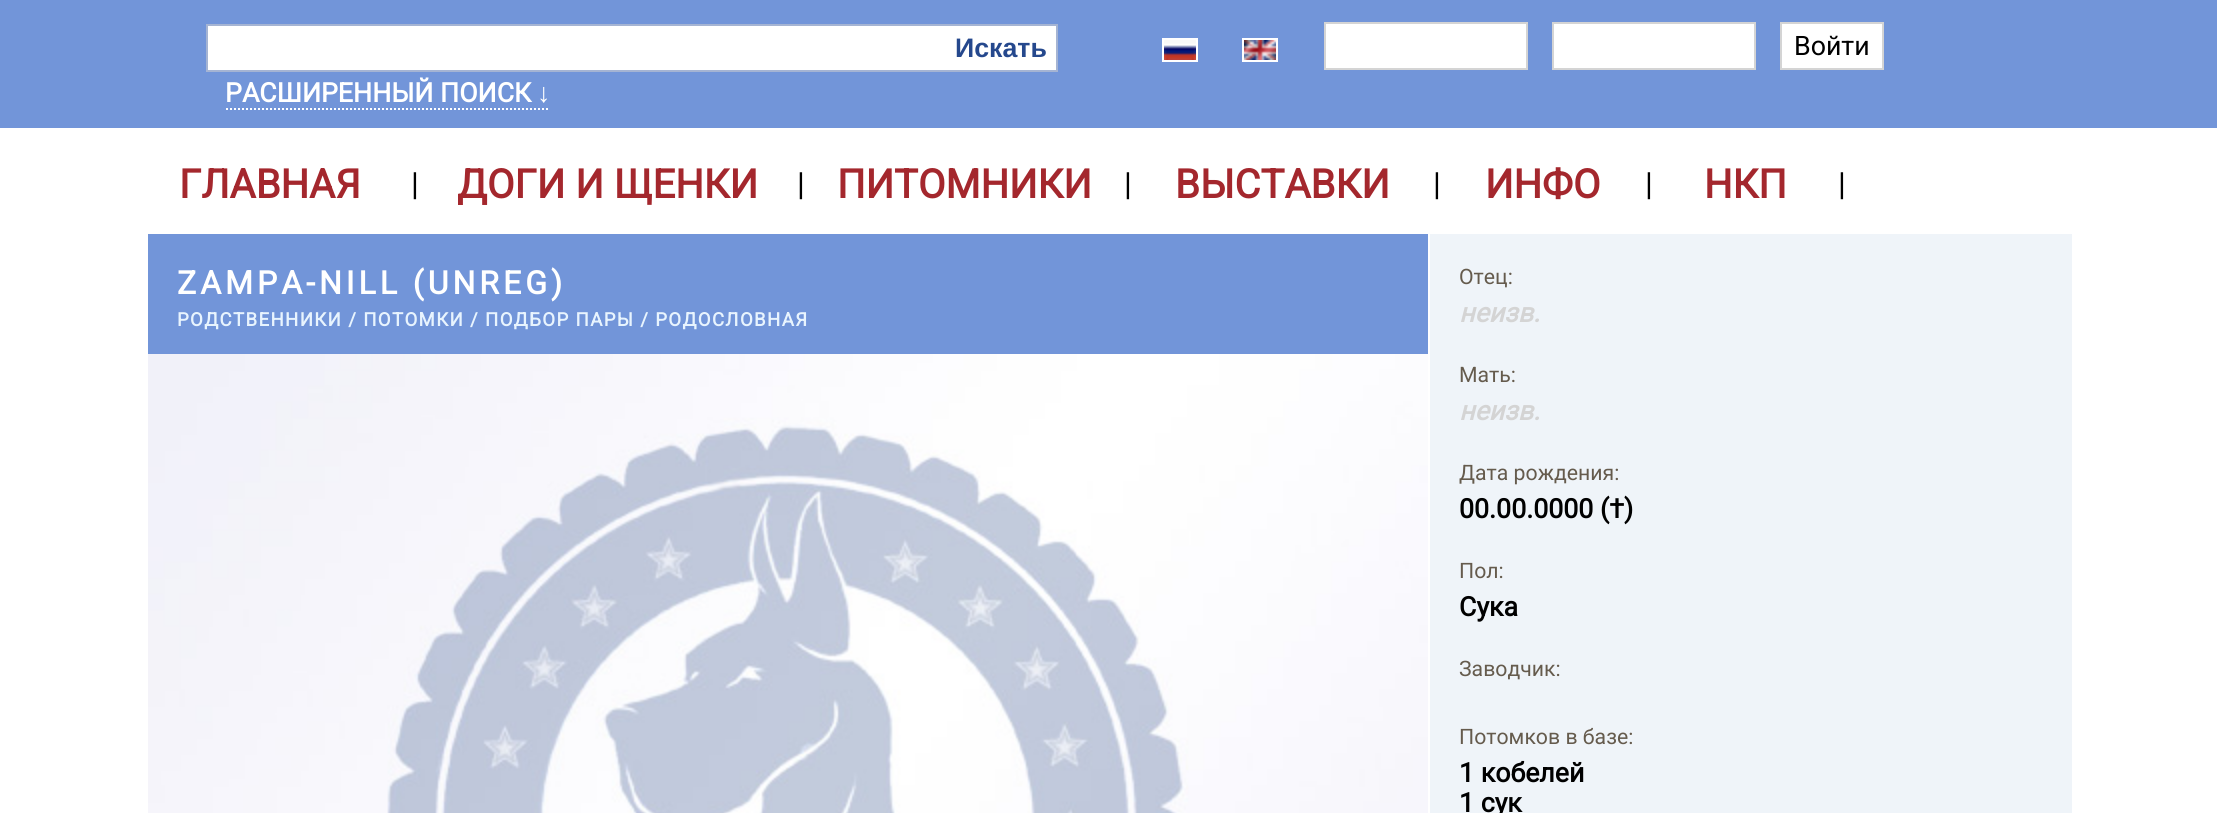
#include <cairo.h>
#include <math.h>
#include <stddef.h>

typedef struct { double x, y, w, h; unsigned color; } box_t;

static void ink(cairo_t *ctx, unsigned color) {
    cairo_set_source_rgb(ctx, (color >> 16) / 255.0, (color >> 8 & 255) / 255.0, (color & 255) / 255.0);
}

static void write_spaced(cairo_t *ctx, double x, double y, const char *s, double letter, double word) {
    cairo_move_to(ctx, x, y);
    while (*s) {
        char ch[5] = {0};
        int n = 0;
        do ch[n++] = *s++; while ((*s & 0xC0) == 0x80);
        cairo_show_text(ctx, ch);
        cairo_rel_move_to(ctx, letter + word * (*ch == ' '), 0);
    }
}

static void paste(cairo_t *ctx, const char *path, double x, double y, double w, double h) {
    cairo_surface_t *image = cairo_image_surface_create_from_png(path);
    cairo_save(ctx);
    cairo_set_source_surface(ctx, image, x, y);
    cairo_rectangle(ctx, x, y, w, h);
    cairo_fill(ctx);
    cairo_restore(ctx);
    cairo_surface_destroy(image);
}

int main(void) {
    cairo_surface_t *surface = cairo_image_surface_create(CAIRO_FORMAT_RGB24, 2217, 813);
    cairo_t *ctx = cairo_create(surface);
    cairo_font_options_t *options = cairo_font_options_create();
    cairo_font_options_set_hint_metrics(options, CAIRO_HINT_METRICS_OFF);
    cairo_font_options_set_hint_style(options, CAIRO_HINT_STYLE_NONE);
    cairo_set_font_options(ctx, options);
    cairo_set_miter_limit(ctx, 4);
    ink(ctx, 0xFFFFFF);
    cairo_paint(ctx);
    {
        static const box_t items[] = {
            {0, 0, 2217, 128, 0x7295D9},
            {208, 26, 848, 44, 0xFFFFFF},
            {206, 24, 852, 2, 0xA5B4D3},
            {206, 70, 740, 2, 0xA5B4D3},
            {206, 24, 2, 48, 0xA5B4D3},
            {1056, 24, 2, 48, 0xA5B4D3},
            {946, 70, 112, 2, 0xA5B4D3},
        };
        for (size_t i = 0; i < sizeof items / sizeof *items; i++) {
            ink(ctx, items[i].color);
            cairo_rectangle(ctx, items[i].x, items[i].y, items[i].w, items[i].h);
            cairo_fill(ctx);
        }
    }
    cairo_select_font_face(ctx, "Liberation Sans", CAIRO_FONT_SLANT_NORMAL, CAIRO_FONT_WEIGHT_BOLD);
    cairo_set_font_size(ctx, 26.75);
    ink(ctx, 0x25488D);
    cairo_move_to(ctx, 955, 57);
    cairo_show_text(ctx, "Искать");
    cairo_select_font_face(ctx, "Roboto", CAIRO_FONT_SLANT_NORMAL, CAIRO_FONT_WEIGHT_BOLD);
    ink(ctx, 0xFFFFFF);
    cairo_move_to(ctx, 225, 102);
    cairo_show_text(ctx, "РАСШИРЕННЫЙ ПОИСК");
    cairo_select_font_face(ctx, "Liberation Sans", CAIRO_FONT_SLANT_NORMAL, CAIRO_FONT_WEIGHT_BOLD);
    cairo_move_to(ctx, 537, 102);
    cairo_show_text(ctx, "↓");
    cairo_new_path(ctx);
    cairo_move_to(ctx, 226, 109);
    cairo_line_to(ctx, 550, 109);
    cairo_set_dash(ctx, (double[]){2, 2}, 2, 0);
    cairo_stroke(ctx);
    cairo_rectangle(ctx, 1163, 39, 34, 22);
    cairo_set_dash(ctx, NULL, 0, 0);
    cairo_stroke(ctx);
    paste(ctx, "media/1.png", 1164, 40, 32, 20);
    cairo_rectangle(ctx, 1243, 39, 34, 22);
    cairo_stroke(ctx);
    paste(ctx, "media/2.png", 1244, 40, 32, 20);
    cairo_rectangle(ctx, 1325, 23, 202, 46);
    cairo_fill_preserve(ctx);
    ink(ctx, 0xD4D4D4);
    cairo_stroke(ctx);
    ink(ctx, 0xFFFFFF);
    cairo_rectangle(ctx, 1553, 23, 202, 46);
    cairo_fill_preserve(ctx);
    ink(ctx, 0xD4D4D4);
    cairo_stroke(ctx);
    ink(ctx, 0xFFFFFF);
    cairo_rectangle(ctx, 1781, 23, 102, 46);
    cairo_fill_preserve(ctx);
    ink(ctx, 0xD4D4D4);
    cairo_stroke(ctx);
    cairo_select_font_face(ctx, "Roboto", CAIRO_FONT_SLANT_NORMAL, CAIRO_FONT_WEIGHT_NORMAL);
    ink(ctx, 0x000000);
    cairo_move_to(ctx, 1794, 55);
    cairo_show_text(ctx, "Войти");
    cairo_select_font_face(ctx, "Roboto", CAIRO_FONT_SLANT_NORMAL, CAIRO_FONT_WEIGHT_BOLD);
    cairo_set_font_size(ctx, 40);
    ink(ctx, 0xA4272D);
    cairo_move_to(ctx, 179, 198);
    cairo_show_text(ctx, "ГЛАВНАЯ");
    cairo_select_font_face(ctx, "Roboto", CAIRO_FONT_SLANT_NORMAL, CAIRO_FONT_WEIGHT_NORMAL);
    cairo_set_font_size(ctx, 32);
    ink(ctx, 0x000000);
    cairo_move_to(ctx, 411, 195);
    cairo_show_text(ctx, "|");
    cairo_select_font_face(ctx, "Roboto", CAIRO_FONT_SLANT_NORMAL, CAIRO_FONT_WEIGHT_BOLD);
    cairo_set_font_size(ctx, 40);
    ink(ctx, 0xA4272D);
    cairo_move_to(ctx, 457, 198);
    cairo_show_text(ctx, "ДОГИ И ЩЕНКИ");
    cairo_select_font_face(ctx, "Roboto", CAIRO_FONT_SLANT_NORMAL, CAIRO_FONT_WEIGHT_NORMAL);
    cairo_set_font_size(ctx, 32);
    ink(ctx, 0x000000);
    cairo_move_to(ctx, 797, 195);
    cairo_show_text(ctx, "|");
    cairo_select_font_face(ctx, "Roboto", CAIRO_FONT_SLANT_NORMAL, CAIRO_FONT_WEIGHT_BOLD);
    cairo_set_font_size(ctx, 40);
    ink(ctx, 0xA4272D);
    cairo_move_to(ctx, 837, 198);
    cairo_show_text(ctx, "ПИТОМНИКИ");
    cairo_select_font_face(ctx, "Roboto", CAIRO_FONT_SLANT_NORMAL, CAIRO_FONT_WEIGHT_NORMAL);
    cairo_set_font_size(ctx, 32);
    ink(ctx, 0x000000);
    cairo_move_to(ctx, 1124, 195);
    cairo_show_text(ctx, "|");
    cairo_select_font_face(ctx, "Roboto", CAIRO_FONT_SLANT_NORMAL, CAIRO_FONT_WEIGHT_BOLD);
    cairo_set_font_size(ctx, 40);
    ink(ctx, 0xA4272D);
    cairo_move_to(ctx, 1175, 198);
    cairo_show_text(ctx, "ВЫСТАВКИ");
    cairo_select_font_face(ctx, "Roboto", CAIRO_FONT_SLANT_NORMAL, CAIRO_FONT_WEIGHT_NORMAL);
    cairo_set_font_size(ctx, 32);
    ink(ctx, 0x000000);
    cairo_move_to(ctx, 1433, 195);
    cairo_show_text(ctx, "|");
    cairo_select_font_face(ctx, "Roboto", CAIRO_FONT_SLANT_NORMAL, CAIRO_FONT_WEIGHT_BOLD);
    cairo_set_font_size(ctx, 40);
    ink(ctx, 0xA4272D);
    cairo_move_to(ctx, 1485, 198);
    cairo_show_text(ctx, "ИНФО");
    cairo_select_font_face(ctx, "Roboto", CAIRO_FONT_SLANT_NORMAL, CAIRO_FONT_WEIGHT_NORMAL);
    cairo_set_font_size(ctx, 32);
    ink(ctx, 0x000000);
    cairo_move_to(ctx, 1645, 195);
    cairo_show_text(ctx, "|");
    cairo_select_font_face(ctx, "Roboto", CAIRO_FONT_SLANT_NORMAL, CAIRO_FONT_WEIGHT_BOLD);
    cairo_set_font_size(ctx, 40);
    ink(ctx, 0xA4272D);
    cairo_move_to(ctx, 1704, 198);
    cairo_show_text(ctx, "НКП");
    cairo_select_font_face(ctx, "Roboto", CAIRO_FONT_SLANT_NORMAL, CAIRO_FONT_WEIGHT_NORMAL);
    cairo_set_font_size(ctx, 32);
    ink(ctx, 0x000000);
    cairo_move_to(ctx, 1838, 195);
    cairo_show_text(ctx, "|");
    ink(ctx, 0x7295D9);
    cairo_rectangle(ctx, 148, 234, 1280, 120);
    cairo_fill(ctx);
    cairo_select_font_face(ctx, "Roboto", CAIRO_FONT_SLANT_NORMAL, CAIRO_FONT_WEIGHT_BOLD);
    ink(ctx, 0xFFFFFF);
    write_spaced(ctx, 177, 294, "ZAMPA-NILL (UNREG)", 4, 0);
    cairo_set_font_size(ctx, 18.65);
    ink(ctx, 0xE8F4FE);
    write_spaced(ctx, 177, 326, "РОДСТВЕННИКИ / ПОТОМКИ / ПОДБОР ПАРЫ / РОДОСЛОВНАЯ", 1.33, 0);
    paste(ctx, "media/3.png", 148, 354, 1280, 459);
    ink(ctx, 0xEFF4F9);
    cairo_rectangle(ctx, 1430, 234, 642, 579);
    cairo_fill(ctx);
    cairo_select_font_face(ctx, "Roboto", CAIRO_FONT_SLANT_NORMAL, CAIRO_FONT_WEIGHT_NORMAL);
    cairo_set_font_size(ctx, 21.25);
    ink(ctx, 0x655B4D);
    cairo_move_to(ctx, 1459, 284);
    cairo_show_text(ctx, "Отец:");
    cairo_select_font_face(ctx, "Roboto", CAIRO_FONT_SLANT_ITALIC, CAIRO_FONT_WEIGHT_BOLD);
    cairo_set_font_size(ctx, 26.75);
    ink(ctx, 0xD4D4D4);
    cairo_move_to(ctx, 1459, 322);
    cairo_show_text(ctx, "неизв.");
    cairo_select_font_face(ctx, "Roboto", CAIRO_FONT_SLANT_NORMAL, CAIRO_FONT_WEIGHT_NORMAL);
    cairo_set_font_size(ctx, 21.25);
    ink(ctx, 0x655B4D);
    cairo_move_to(ctx, 1459, 382);
    cairo_show_text(ctx, "Мать:");
    cairo_select_font_face(ctx, "Roboto", CAIRO_FONT_SLANT_ITALIC, CAIRO_FONT_WEIGHT_BOLD);
    cairo_set_font_size(ctx, 26.75);
    ink(ctx, 0xD4D4D4);
    cairo_move_to(ctx, 1459, 420);
    cairo_show_text(ctx, "неизв.");
    cairo_select_font_face(ctx, "Roboto", CAIRO_FONT_SLANT_NORMAL, CAIRO_FONT_WEIGHT_NORMAL);
    cairo_set_font_size(ctx, 21.25);
    ink(ctx, 0x655B4D);
    cairo_move_to(ctx, 1459, 480);
    cairo_show_text(ctx, "Дата рождения:");
    cairo_select_font_face(ctx, "Roboto", CAIRO_FONT_SLANT_NORMAL, CAIRO_FONT_WEIGHT_BOLD);
    cairo_set_font_size(ctx, 26.75);
    ink(ctx, 0x000000);
    cairo_move_to(ctx, 1459, 518);
    cairo_show_text(ctx, "00.00.0000 (†)");
    cairo_select_font_face(ctx, "Roboto", CAIRO_FONT_SLANT_NORMAL, CAIRO_FONT_WEIGHT_NORMAL);
    cairo_set_font_size(ctx, 21.25);
    ink(ctx, 0x655B4D);
    cairo_move_to(ctx, 1459, 578);
    cairo_show_text(ctx, "Пол:");
    cairo_select_font_face(ctx, "Roboto", CAIRO_FONT_SLANT_NORMAL, CAIRO_FONT_WEIGHT_BOLD);
    cairo_set_font_size(ctx, 26.75);
    ink(ctx, 0x000000);
    cairo_move_to(ctx, 1459, 616);
    cairo_show_text(ctx, "Сука");
    cairo_select_font_face(ctx, "Roboto", CAIRO_FONT_SLANT_NORMAL, CAIRO_FONT_WEIGHT_NORMAL);
    cairo_set_font_size(ctx, 21.25);
    ink(ctx, 0x655B4D);
    cairo_move_to(ctx, 1459, 676);
    cairo_show_text(ctx, "Заводчик:");
    cairo_move_to(ctx, 1459, 744);
    cairo_show_text(ctx, "Потомков в базе:");
    cairo_select_font_face(ctx, "Roboto", CAIRO_FONT_SLANT_NORMAL, CAIRO_FONT_WEIGHT_BOLD);
    cairo_set_font_size(ctx, 26.75);
    ink(ctx, 0x000000);
    cairo_move_to(ctx, 1459, 782);
    cairo_show_text(ctx, "1 кобелей");
    cairo_move_to(ctx, 1459, 812);
    cairo_show_text(ctx, "1 сук");
    cairo_surface_write_to_png(surface, "image.png");
    cairo_font_options_destroy(options);
    cairo_destroy(ctx);
    cairo_surface_destroy(surface);
    return 0;
}
